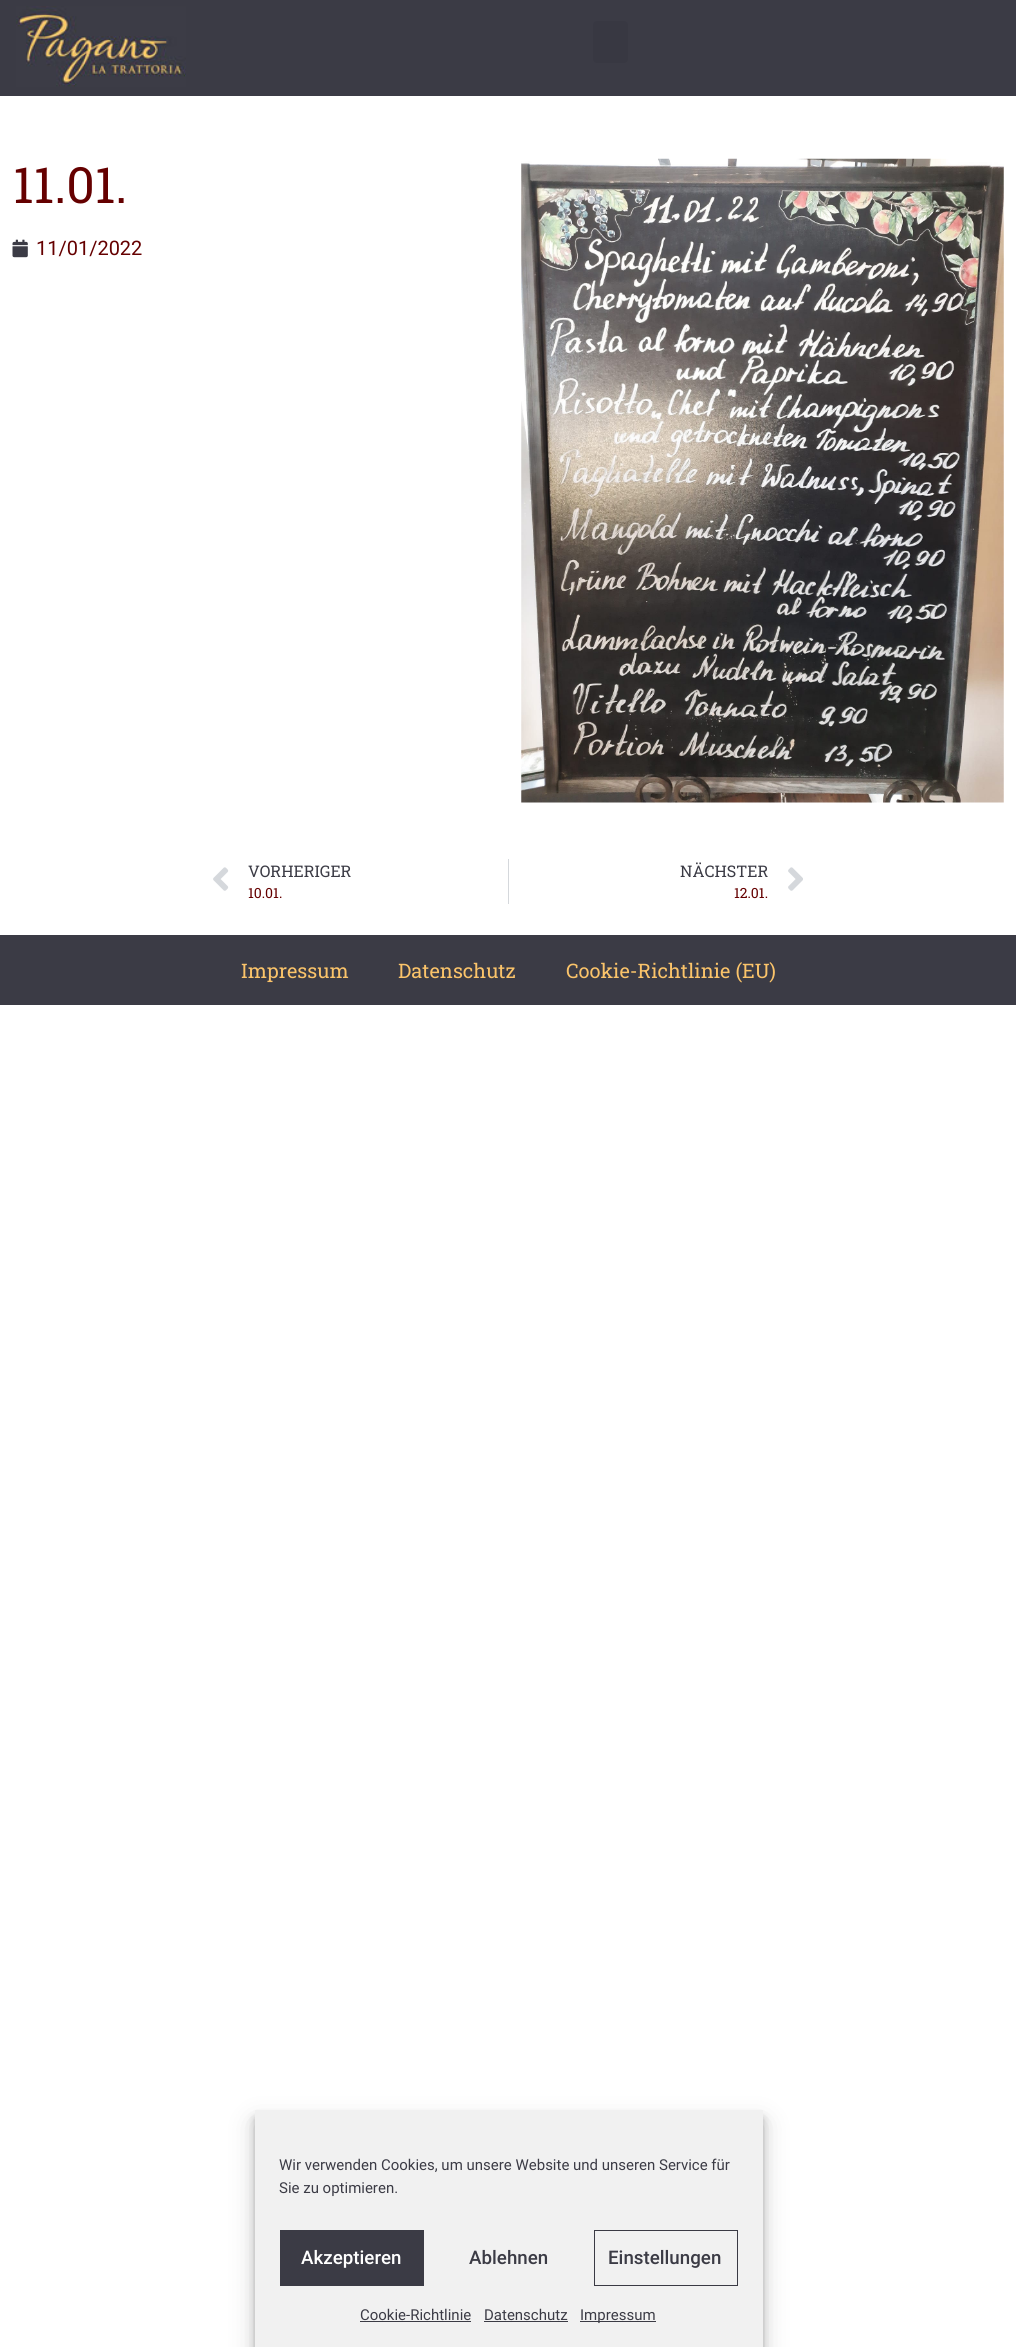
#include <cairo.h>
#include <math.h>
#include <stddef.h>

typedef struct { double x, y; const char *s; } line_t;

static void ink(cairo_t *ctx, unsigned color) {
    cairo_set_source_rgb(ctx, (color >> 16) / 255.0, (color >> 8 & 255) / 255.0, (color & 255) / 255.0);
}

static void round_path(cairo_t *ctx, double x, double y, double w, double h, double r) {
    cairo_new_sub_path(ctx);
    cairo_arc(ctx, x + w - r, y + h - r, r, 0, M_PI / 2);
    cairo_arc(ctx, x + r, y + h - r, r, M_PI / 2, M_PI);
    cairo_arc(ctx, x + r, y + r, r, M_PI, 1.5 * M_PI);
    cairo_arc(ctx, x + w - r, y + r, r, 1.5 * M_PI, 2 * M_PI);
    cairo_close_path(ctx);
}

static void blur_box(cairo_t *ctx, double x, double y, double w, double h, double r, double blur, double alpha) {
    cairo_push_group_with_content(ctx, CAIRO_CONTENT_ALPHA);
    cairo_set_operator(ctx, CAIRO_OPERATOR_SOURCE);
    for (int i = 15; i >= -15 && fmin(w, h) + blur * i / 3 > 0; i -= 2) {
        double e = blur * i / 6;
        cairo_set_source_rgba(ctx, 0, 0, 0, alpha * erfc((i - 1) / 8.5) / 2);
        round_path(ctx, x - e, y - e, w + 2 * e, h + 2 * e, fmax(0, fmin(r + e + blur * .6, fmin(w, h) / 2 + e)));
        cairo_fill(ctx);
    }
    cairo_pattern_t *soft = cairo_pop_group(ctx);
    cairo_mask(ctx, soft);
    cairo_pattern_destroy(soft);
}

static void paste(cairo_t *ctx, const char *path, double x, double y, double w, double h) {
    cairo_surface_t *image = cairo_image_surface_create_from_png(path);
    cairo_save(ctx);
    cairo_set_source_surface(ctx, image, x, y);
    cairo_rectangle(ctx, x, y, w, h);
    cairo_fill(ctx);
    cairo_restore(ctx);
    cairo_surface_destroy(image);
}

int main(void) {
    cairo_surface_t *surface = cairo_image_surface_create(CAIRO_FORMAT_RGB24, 1016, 2347);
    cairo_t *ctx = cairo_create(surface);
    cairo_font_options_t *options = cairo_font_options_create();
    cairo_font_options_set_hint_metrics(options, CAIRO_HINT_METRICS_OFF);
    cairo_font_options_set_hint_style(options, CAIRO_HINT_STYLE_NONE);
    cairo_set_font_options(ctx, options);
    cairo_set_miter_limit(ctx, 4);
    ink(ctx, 0xFFFFFF);
    cairo_paint(ctx);
    ink(ctx, 0x3B3B45);
    cairo_rectangle(ctx, 0, 0, 1016, 96);
    cairo_fill(ctx);
    paste(ctx, "media/1.png", 16, 6, 170, 81);
    ink(ctx, 0x383842);
    round_path(ctx, 593, 21, 35, 42, 4);
    cairo_fill(ctx);
    cairo_select_font_face(ctx, "Roboto Slab", CAIRO_FONT_SLANT_NORMAL, CAIRO_FONT_WEIGHT_NORMAL);
    cairo_set_font_size(ctx, 50);
    ink(ctx, 0x650000);
    cairo_move_to(ctx, 13, 203);
    cairo_show_text(ctx, "11.01.");
    paste(ctx, "media/2.png", 12, 239, 16, 19);
    cairo_select_font_face(ctx, "Roboto", CAIRO_FONT_SLANT_NORMAL, CAIRO_FONT_WEIGHT_NORMAL);
    cairo_set_font_size(ctx, 20);
    cairo_move_to(ctx, 36, 255);
    cairo_show_text(ctx, "11/01/2022");
    paste(ctx, "media/3.png", 521, 158, 483, 645);
    paste(ctx, "media/4.png", 213, 867, 16, 24);
    cairo_select_font_face(ctx, "Roboto Slab", CAIRO_FONT_SLANT_NORMAL, CAIRO_FONT_WEIGHT_NORMAL);
    cairo_set_font_size(ctx, 16);
    ink(ctx, 0x3B3B45);
    cairo_move_to(ctx, 248, 877);
    cairo_show_text(ctx, "VORHERIGER");
    cairo_set_font_size(ctx, 14);
    ink(ctx, 0x650000);
    cairo_move_to(ctx, 248, 898);
    cairo_show_text(ctx, "10.01.");
    ink(ctx, 0xD5D8DC);
    cairo_rectangle(ctx, 508, 859, 1, 45);
    cairo_fill(ctx);
    cairo_set_font_size(ctx, 16);
    ink(ctx, 0x3B3B45);
    cairo_move_to(ctx, 680, 877);
    cairo_show_text(ctx, "NÄCHSTER");
    cairo_set_font_size(ctx, 14);
    ink(ctx, 0x650000);
    cairo_move_to(ctx, 734, 898);
    cairo_show_text(ctx, "12.01.");
    paste(ctx, "media/5.png", 788, 867, 15, 24);
    ink(ctx, 0x3B3B45);
    cairo_rectangle(ctx, 0, 935, 1016, 70);
    cairo_fill(ctx);
    cairo_set_font_size(ctx, 20);
    ink(ctx, 0xFBC46A);
    {
        static const line_t items[] = {
            {241, 978, "Impressum"},
            {398, 978, "Datenschutz"},
            {566, 978, "Cookie-Richtlinie (EU)"},
        };
        for (size_t i = 0; i < sizeof items / sizeof *items; i++) {
            cairo_move_to(ctx, items[i].x, items[i].y);
            cairo_show_text(ctx, items[i].s);
        }
    }
    ink(ctx, 0x000000);
    blur_box(ctx, 255, 2118, 508, 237, 0, 4, 0.23);
    blur_box(ctx, 255, 2123, 508, 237, 0, 12.5, 0.19);
    ink(ctx, 0xF1F1F1);
    cairo_rectangle(ctx, 255, 2110, 508, 237);
    cairo_fill(ctx);
    cairo_select_font_face(ctx, "Roboto", CAIRO_FONT_SLANT_NORMAL, CAIRO_FONT_WEIGHT_NORMAL);
    cairo_set_font_size(ctx, 15);
    ink(ctx, 0x3B3B45);
    cairo_move_to(ctx, 279, 2170);
    cairo_show_text(ctx, "Wir verwenden Cookies, um unsere Website und unseren Service für");
    cairo_move_to(ctx, 279, 2193);
    cairo_show_text(ctx, "Sie zu optimieren.");
    cairo_rectangle(ctx, 280, 2230, 144, 56);
    cairo_fill(ctx);
    cairo_select_font_face(ctx, "Roboto Medium", CAIRO_FONT_SLANT_NORMAL, CAIRO_FONT_WEIGHT_NORMAL);
    cairo_set_font_size(ctx, 18.75);
    ink(ctx, 0xFFFFFF);
    cairo_move_to(ctx, 301, 2264);
    cairo_show_text(ctx, "Akzeptieren");
    ink(ctx, 0x3B3B45);
    cairo_move_to(ctx, 469, 2264);
    cairo_show_text(ctx, "Ablehnen");
    cairo_rectangle(ctx, 594.5, 2230.5, 143, 55);
    cairo_set_line_width(ctx, 1);
    cairo_stroke(ctx);
    cairo_move_to(ctx, 608, 2264);
    cairo_show_text(ctx, "Einstellungen");
    cairo_select_font_face(ctx, "Roboto", CAIRO_FONT_SLANT_NORMAL, CAIRO_FONT_WEIGHT_NORMAL);
    cairo_set_font_size(ctx, 15);
    cairo_move_to(ctx, 360, 2320);
    cairo_show_text(ctx, "Cookie-Richtlinie");
    cairo_rectangle(ctx, 360, 2321, 111, 1);
    cairo_fill(ctx);
    cairo_move_to(ctx, 484, 2320);
    cairo_show_text(ctx, "Datenschutz");
    cairo_rectangle(ctx, 484, 2321, 84, 1);
    cairo_fill(ctx);
    cairo_rectangle(ctx, 580, 2321, 76, 1);
    cairo_fill(ctx);
    cairo_move_to(ctx, 580, 2320);
    cairo_show_text(ctx, "Impressum");
    cairo_surface_write_to_png(surface, "image.png");
    cairo_font_options_destroy(options);
    cairo_destroy(ctx);
    cairo_surface_destroy(surface);
    return 0;
}
